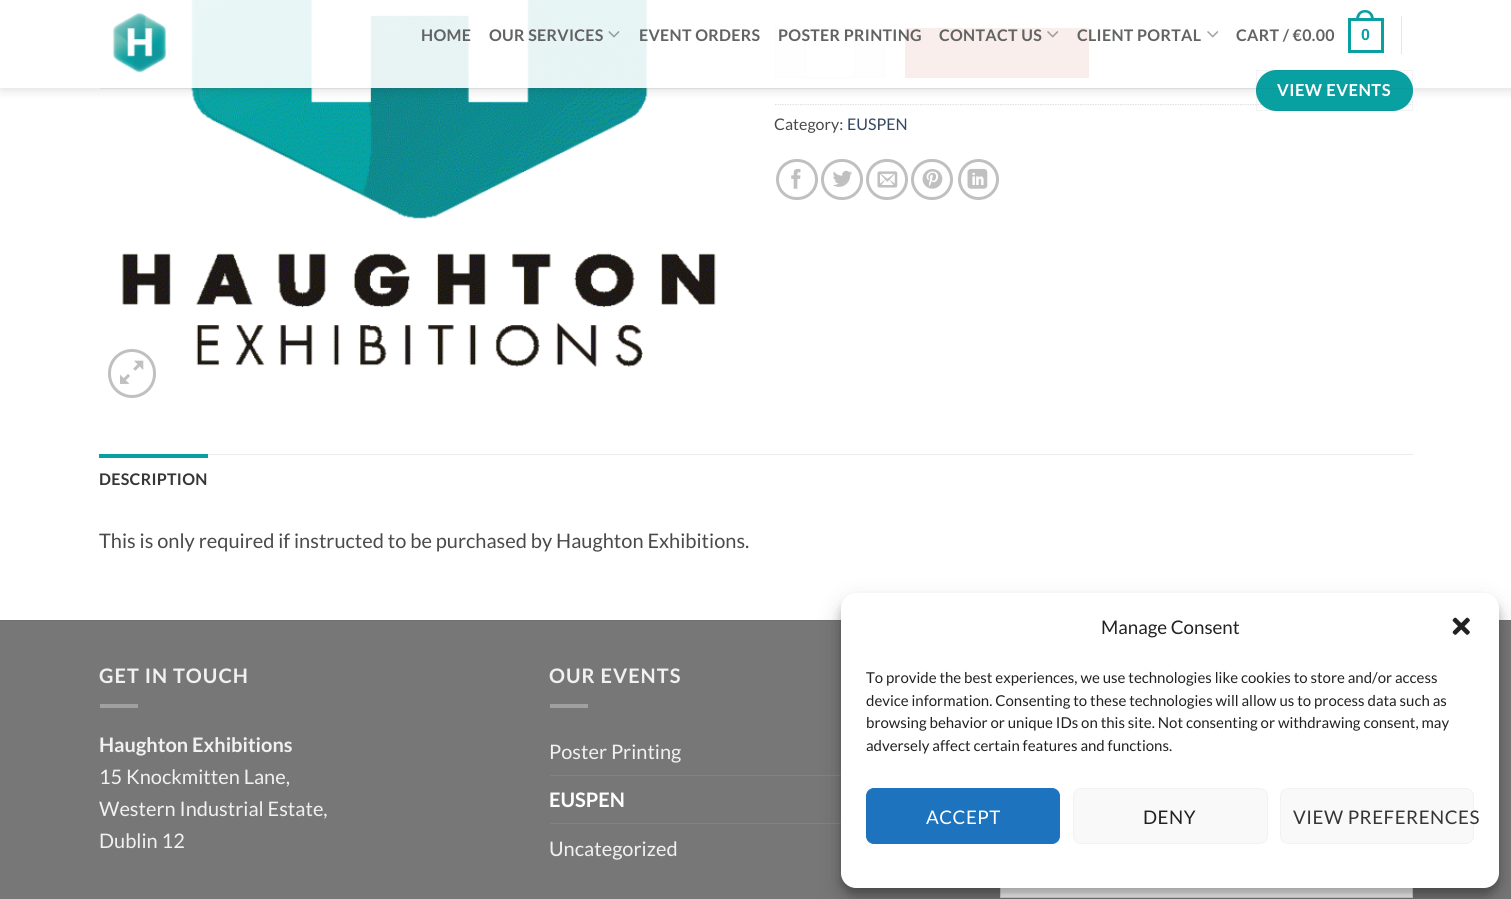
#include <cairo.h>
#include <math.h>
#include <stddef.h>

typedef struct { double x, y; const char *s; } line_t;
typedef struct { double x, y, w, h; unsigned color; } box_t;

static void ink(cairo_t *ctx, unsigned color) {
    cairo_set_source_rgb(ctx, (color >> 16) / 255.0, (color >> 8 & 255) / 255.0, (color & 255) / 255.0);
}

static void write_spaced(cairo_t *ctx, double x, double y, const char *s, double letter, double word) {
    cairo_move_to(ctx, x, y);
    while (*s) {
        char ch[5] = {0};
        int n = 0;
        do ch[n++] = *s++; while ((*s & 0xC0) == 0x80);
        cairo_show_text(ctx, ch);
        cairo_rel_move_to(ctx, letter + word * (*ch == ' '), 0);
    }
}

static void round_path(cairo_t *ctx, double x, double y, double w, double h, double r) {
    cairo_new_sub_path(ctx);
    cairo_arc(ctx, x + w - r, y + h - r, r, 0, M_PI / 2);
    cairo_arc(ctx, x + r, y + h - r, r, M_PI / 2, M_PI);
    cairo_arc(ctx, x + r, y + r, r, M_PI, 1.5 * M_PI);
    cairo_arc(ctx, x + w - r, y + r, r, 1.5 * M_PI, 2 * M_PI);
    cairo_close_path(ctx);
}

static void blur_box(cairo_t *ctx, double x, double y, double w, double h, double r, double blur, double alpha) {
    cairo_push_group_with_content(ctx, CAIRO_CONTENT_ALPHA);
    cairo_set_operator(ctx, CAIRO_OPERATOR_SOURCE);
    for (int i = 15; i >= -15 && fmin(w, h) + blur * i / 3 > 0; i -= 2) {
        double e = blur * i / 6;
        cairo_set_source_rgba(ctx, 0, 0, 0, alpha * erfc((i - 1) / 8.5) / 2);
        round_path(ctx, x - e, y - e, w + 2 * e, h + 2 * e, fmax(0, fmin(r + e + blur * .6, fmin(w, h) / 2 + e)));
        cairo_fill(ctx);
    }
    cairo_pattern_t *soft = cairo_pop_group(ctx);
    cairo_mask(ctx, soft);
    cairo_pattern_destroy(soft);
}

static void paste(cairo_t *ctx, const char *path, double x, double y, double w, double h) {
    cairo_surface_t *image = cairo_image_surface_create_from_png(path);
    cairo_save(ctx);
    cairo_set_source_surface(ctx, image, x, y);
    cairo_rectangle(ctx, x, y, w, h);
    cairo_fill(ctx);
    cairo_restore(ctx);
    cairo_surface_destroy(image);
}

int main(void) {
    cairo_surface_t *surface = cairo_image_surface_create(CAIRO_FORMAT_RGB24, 1511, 899);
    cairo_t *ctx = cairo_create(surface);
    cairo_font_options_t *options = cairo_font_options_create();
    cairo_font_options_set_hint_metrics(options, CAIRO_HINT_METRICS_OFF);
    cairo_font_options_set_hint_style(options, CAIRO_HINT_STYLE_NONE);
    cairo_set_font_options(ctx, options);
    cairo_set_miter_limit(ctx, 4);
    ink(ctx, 0xFFFFFF);
    cairo_paint(ctx);
    paste(ctx, "media/5.png", 122, 0, 594, 367);
    {
        static const box_t items[] = {
            {776, 29, 29, 49, 0xF9F9F9},
            {775, 28, 30, 1, 0xDDDDDD},
            {775, 76, 30, 1, 0xDDDDDD},
            {775, 28, 1, 50, 0xDDDDDD},
        };
        for (size_t i = 0; i < sizeof items / sizeof *items; i++) {
            ink(ctx, items[i].color);
            cairo_rectangle(ctx, items[i].x, items[i].y, items[i].w, items[i].h);
            cairo_fill(ctx);
        }
    }
    cairo_rectangle(ctx, 805.5, 28.5, 49, 49);
    cairo_set_line_width(ctx, 1);
    cairo_stroke(ctx);
    {
        static const box_t items[] = {
            {855, 29, 29, 49, 0xF9F9F9},
            {855, 28, 30, 1, 0xDDDDDD},
            {884, 28, 1, 50, 0xDDDDDD},
            {855, 76, 30, 1, 0xDDDDDD},
        };
        for (size_t i = 0; i < sizeof items / sizeof *items; i++) {
            ink(ctx, items[i].color);
            cairo_rectangle(ctx, items[i].x, items[i].y, items[i].w, items[i].h);
            cairo_fill(ctx);
        }
    }
    ink(ctx, 0xC05530);
    cairo_rectangle(ctx, 905.5, 28.5, 183, 49);
    cairo_fill_preserve(ctx);
    ink(ctx, 0xB6512E);
    cairo_stroke(ctx);
    cairo_new_path(ctx);
    cairo_move_to(ctx, 775, 104.5);
    cairo_line_to(ctx, 1412.5, 104.5);
    ink(ctx, 0xDDDDDD);
    cairo_set_line_width(ctx, 1.2);
    cairo_set_dash(ctx, (double[]){1.25, 1.25}, 2, 0);
    cairo_stroke(ctx);
    cairo_save(ctx);
    cairo_set_fill_rule(ctx, CAIRO_FILL_RULE_EVEN_ODD);
    cairo_new_path(ctx);
    cairo_move_to(ctx, 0, 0);
    cairo_line_to(ctx, 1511, 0);
    cairo_line_to(ctx, 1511, 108);
    cairo_line_to(ctx, 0, 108);
    cairo_close_path(ctx);
    cairo_move_to(ctx, 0, 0);
    cairo_line_to(ctx, 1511, 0);
    cairo_line_to(ctx, 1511, 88);
    cairo_line_to(ctx, 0, 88);
    cairo_close_path(ctx);
    cairo_clip(ctx);
    ink(ctx, 0x000000);
    blur_box(ctx, 1, 1, 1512, 88, 0, 6, 0.15);
    cairo_restore(ctx);
    cairo_set_source_rgba(ctx, 1, 1, 1, 0.9);
    cairo_rectangle(ctx, 0, 0, 1511, 88);
    cairo_fill(ctx);
    paste(ctx, "media/1.png", 112, 13, 55, 60);
    cairo_select_font_face(ctx, "Lato", CAIRO_FONT_SLANT_NORMAL, CAIRO_FONT_WEIGHT_BOLD);
    cairo_set_font_size(ctx, 16);
    ink(ctx, 0x626363);
    write_spaced(ctx, 421, 41, "HOME", 0.3, 0);
    write_spaced(ctx, 489, 41, "OUR SERVICES", 0.3, 0);
    paste(ctx, "media/2.png", 608, 31, 12, 7);
    {
        static const line_t items[] = {
            {639, 41, "EVENT ORDERS"},
            {778, 41, "POSTER PRINTING"},
            {939, 41, "CONTACT US"},
        };
        for (size_t i = 0; i < sizeof items / sizeof *items; i++) {
            write_spaced(ctx, items[i].x, items[i].y, items[i].s, 0.3, 0);
        }
    }
    paste(ctx, "media/3.png", 1047, 31, 12, 7);
    write_spaced(ctx, 1077, 41, "CLIENT PORTAL", 0.3, 0);
    paste(ctx, "media/4.png", 1207, 31, 12, 7);
    write_spaced(ctx, 1236, 41, "CART / €0.00", 0.3, 0);
    cairo_rectangle(ctx, 1349.5, 19.5, 33, 32);
    ink(ctx, 0x09A0A1);
    cairo_set_line_width(ctx, 3);
    cairo_set_dash(ctx, NULL, 0, 0);
    cairo_stroke(ctx);
    cairo_set_fill_rule(ctx, CAIRO_FILL_RULE_EVEN_ODD);
    cairo_new_path(ctx);
    cairo_move_to(ctx, 1365, 10);
    cairo_curve_to(ctx, 1371, 10, 1374, 14.5, 1374, 20);
    cairo_line_to(ctx, 1356, 20);
    cairo_curve_to(ctx, 1356, 14.5, 1359, 10, 1365, 10);
    cairo_close_path(ctx);
    cairo_move_to(ctx, 1365, 12.5);
    cairo_curve_to(ctx, 1369.5, 12.5, 1371, 16, 1371, 20);
    cairo_line_to(ctx, 1359, 20);
    cairo_curve_to(ctx, 1359, 16, 1360.5, 12.5, 1365, 12.5);
    cairo_close_path(ctx);
    cairo_fill(ctx);
    cairo_select_font_face(ctx, "Liberation Sans", CAIRO_FONT_SLANT_NORMAL, CAIRO_FONT_WEIGHT_BOLD);
    write_spaced(ctx, 1361, 40, "0", 0.3, 0);
    ink(ctx, 0xE6E6E6);
    cairo_rectangle(ctx, 1401, 16, 1, 38);
    cairo_fill(ctx);
    ink(ctx, 0x09A0A1);
    round_path(ctx, 1256, 70, 157, 41, 20.5);
    cairo_fill(ctx);
    cairo_rectangle(ctx, 1256.5, 70.5, 156, 40);
    cairo_set_source_rgba(ctx, 0, 0, 0, 0.05);
    cairo_set_line_width(ctx, 1);
    cairo_stroke(ctx);
    cairo_select_font_face(ctx, "Lato", CAIRO_FONT_SLANT_NORMAL, CAIRO_FONT_WEIGHT_BOLD);
    cairo_set_font_size(ctx, 16.5);
    ink(ctx, 0xFFFFFF);
    write_spaced(ctx, 1277, 96, "VIEW EVENTS", 0.5, 0);
    cairo_set_source_rgba(ctx, 0.29, 0.29, 0.29, 0.1);
    cairo_rectangle(ctx, 100, 88, 1313, 1);
    cairo_fill(ctx);
    round_path(ctx, 109.5, 350.5, 45, 46, 22.5);
    ink(ctx, 0xC0C0C0);
    cairo_set_line_width(ctx, 3);
    cairo_stroke(ctx);
    paste(ctx, "media/6.png", 120, 360, 24, 24);
    cairo_select_font_face(ctx, "Lato", CAIRO_FONT_SLANT_NORMAL, CAIRO_FONT_WEIGHT_NORMAL);
    cairo_set_font_size(ctx, 16);
    ink(ctx, 0x4A4A4A);
    cairo_move_to(ctx, 774, 130);
    cairo_show_text(ctx, "Category:");
    ink(ctx, 0x334862);
    cairo_move_to(ctx, 847, 130);
    cairo_show_text(ctx, "EUSPEN");
    round_path(ctx, 777.5, 160.5, 39, 38, 19);
    ink(ctx, 0xC0C0C0);
    cairo_stroke(ctx);
    paste(ctx, "media/7.png", 791, 168, 10, 21);
    round_path(ctx, 822.5, 160.5, 39, 38, 19);
    cairo_stroke(ctx);
    paste(ctx, "media/8.png", 833, 170, 19, 17);
    round_path(ctx, 867.5, 160.5, 39, 38, 19);
    cairo_stroke(ctx);
    paste(ctx, "media/9.png", 877, 171, 21, 17);
    round_path(ctx, 912.5, 160.5, 39, 38, 19);
    cairo_stroke(ctx);
    paste(ctx, "media/10.png", 922, 169, 21, 20);
    cairo_arc(ctx, 978.5, 179.5, 19, 0, 2 * M_PI);
    cairo_stroke(ctx);
    paste(ctx, "media/11.png", 967, 168, 21, 21);
    ink(ctx, 0xECECEC);
    cairo_rectangle(ctx, 208, 454, 1205, 1);
    cairo_fill(ctx);
    ink(ctx, 0x09A0A1);
    cairo_rectangle(ctx, 99, 454, 109, 4);
    cairo_fill(ctx);
    cairo_select_font_face(ctx, "Lato", CAIRO_FONT_SLANT_NORMAL, CAIRO_FONT_WEIGHT_BOLD);
    ink(ctx, 0x363636);
    write_spaced(ctx, 99, 485, "DESCRIPTION", 0.3, 0);
    cairo_select_font_face(ctx, "Lato", CAIRO_FONT_SLANT_NORMAL, CAIRO_FONT_WEIGHT_NORMAL);
    cairo_set_font_size(ctx, 20);
    ink(ctx, 0x4A4A4A);
    cairo_move_to(ctx, 99, 548);
    cairo_show_text(ctx, "This is only required if instructed to be purchased by Haughton Exhibitions.");
    ink(ctx, 0x777777);
    cairo_rectangle(ctx, 0, 621, 1511, 278);
    cairo_fill(ctx);
    ink(ctx, 0x717171);
    cairo_rectangle(ctx, 0, 620, 1511, 1);
    cairo_fill(ctx);
    cairo_select_font_face(ctx, "Lato", CAIRO_FONT_SLANT_NORMAL, CAIRO_FONT_WEIGHT_BOLD);
    ink(ctx, 0xF1F1F1);
    write_spaced(ctx, 99, 683, "GET IN TOUCH", 1, 0);
    ink(ctx, 0xA0A0A0);
    cairo_rectangle(ctx, 100, 704, 38, 4);
    cairo_fill(ctx);
    ink(ctx, 0xF1F1F1);
    cairo_move_to(ctx, 99, 752);
    cairo_show_text(ctx, "Haughton Exhibitions");
    cairo_select_font_face(ctx, "Lato", CAIRO_FONT_SLANT_NORMAL, CAIRO_FONT_WEIGHT_NORMAL);
    {
        static const line_t items[] = {
            {99, 784, "15 Knockmitten Lane,"},
            {99, 816, "Western Industrial Estate,"},
            {99, 848, "Dublin 12"},
        };
        for (size_t i = 0; i < sizeof items / sizeof *items; i++) {
            cairo_move_to(ctx, items[i].x, items[i].y);
            cairo_show_text(ctx, items[i].s);
        }
    }
    cairo_select_font_face(ctx, "Lato", CAIRO_FONT_SLANT_NORMAL, CAIRO_FONT_WEIGHT_BOLD);
    write_spaced(ctx, 549, 683, "OUR EVENTS", 1, 0);
    ink(ctx, 0xA0A0A0);
    cairo_rectangle(ctx, 550, 704, 38, 4);
    cairo_fill(ctx);
    cairo_select_font_face(ctx, "Lato", CAIRO_FONT_SLANT_NORMAL, CAIRO_FONT_WEIGHT_NORMAL);
    ink(ctx, 0xF1F1F1);
    cairo_move_to(ctx, 549, 759);
    cairo_show_text(ctx, "Poster Printing");
    ink(ctx, 0x828282);
    cairo_rectangle(ctx, 550, 775, 291, 1);
    cairo_fill(ctx);
    cairo_select_font_face(ctx, "Lato", CAIRO_FONT_SLANT_NORMAL, CAIRO_FONT_WEIGHT_BOLD);
    ink(ctx, 0xFFFFFF);
    cairo_move_to(ctx, 549, 807);
    cairo_show_text(ctx, "EUSPEN");
    ink(ctx, 0x828282);
    cairo_rectangle(ctx, 550, 823, 291, 1);
    cairo_fill(ctx);
    cairo_select_font_face(ctx, "Lato", CAIRO_FONT_SLANT_NORMAL, CAIRO_FONT_WEIGHT_NORMAL);
    ink(ctx, 0xF1F1F1);
    cairo_move_to(ctx, 549, 856);
    cairo_show_text(ctx, "Uncategorized");
    ink(ctx, 0xFFFFFF);
    cairo_rectangle(ctx, 1001, 888, 411, 9);
    cairo_fill(ctx);
    cairo_rectangle(ctx, 1000.5, 854.5, 412, 43);
    ink(ctx, 0xDDDDDD);
    cairo_set_line_width(ctx, 1);
    cairo_stroke(ctx);
    ink(ctx, 0x000000);
    blur_box(ctx, 841, 600, 658, 295, 15, 4, 0.23);
    blur_box(ctx, 841, 605, 658, 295, 15, 12.5, 0.19);
    ink(ctx, 0xFFFFFF);
    round_path(ctx, 841, 593, 658, 295, 15);
    cairo_fill(ctx);
    cairo_set_font_size(ctx, 18.75);
    ink(ctx, 0x222222);
    cairo_move_to(ctx, 1101, 634);
    cairo_show_text(ctx, "Manage Consent");
    paste(ctx, "media/12.png", 1452, 617, 18, 18);
    cairo_set_font_size(ctx, 15);
    {
        static const line_t items[] = {
            {866, 683, "To provide the best experiences, we use technologies like cookies to store and/or access"},
            {866, 706, "device information. Consenting to these technologies will allow us to process data such as"},
            {866, 728, "browsing behavior or unique IDs on this site. Not consenting or withdrawing consent, may"},
            {866, 751, "adversely affect certain features and functions."},
        };
        for (size_t i = 0; i < sizeof items / sizeof *items; i++) {
            cairo_move_to(ctx, items[i].x, items[i].y);
            cairo_show_text(ctx, items[i].s);
        }
    }
    ink(ctx, 0x1E73BE);
    round_path(ctx, 866.5, 788.5, 193, 55, 7.5);
    cairo_fill_preserve(ctx);
    cairo_stroke(ctx);
    cairo_set_font_size(ctx, 18.75);
    ink(ctx, 0xFFFFFF);
    write_spaced(ctx, 926, 824, "ACCEPT", 0.5, 0);
    ink(ctx, 0xF9F9F9);
    round_path(ctx, 1073.5, 788.5, 194, 55, 7.5);
    cairo_fill_preserve(ctx);
    ink(ctx, 0xF2F2F2);
    cairo_stroke(ctx);
    ink(ctx, 0x222222);
    write_spaced(ctx, 1143, 824, "DENY", 0.5, 0);
    ink(ctx, 0xF9F9F9);
    round_path(ctx, 1280.5, 788.5, 193, 55, 7.5);
    cairo_fill_preserve(ctx);
    ink(ctx, 0xF2F2F2);
    cairo_stroke(ctx);
    ink(ctx, 0x363636);
    write_spaced(ctx, 1293, 824, "VIEW PREFERENCES", 0.5, 0);
    cairo_surface_write_to_png(surface, "image.png");
    cairo_font_options_destroy(options);
    cairo_destroy(ctx);
    cairo_surface_destroy(surface);
    return 0;
}
